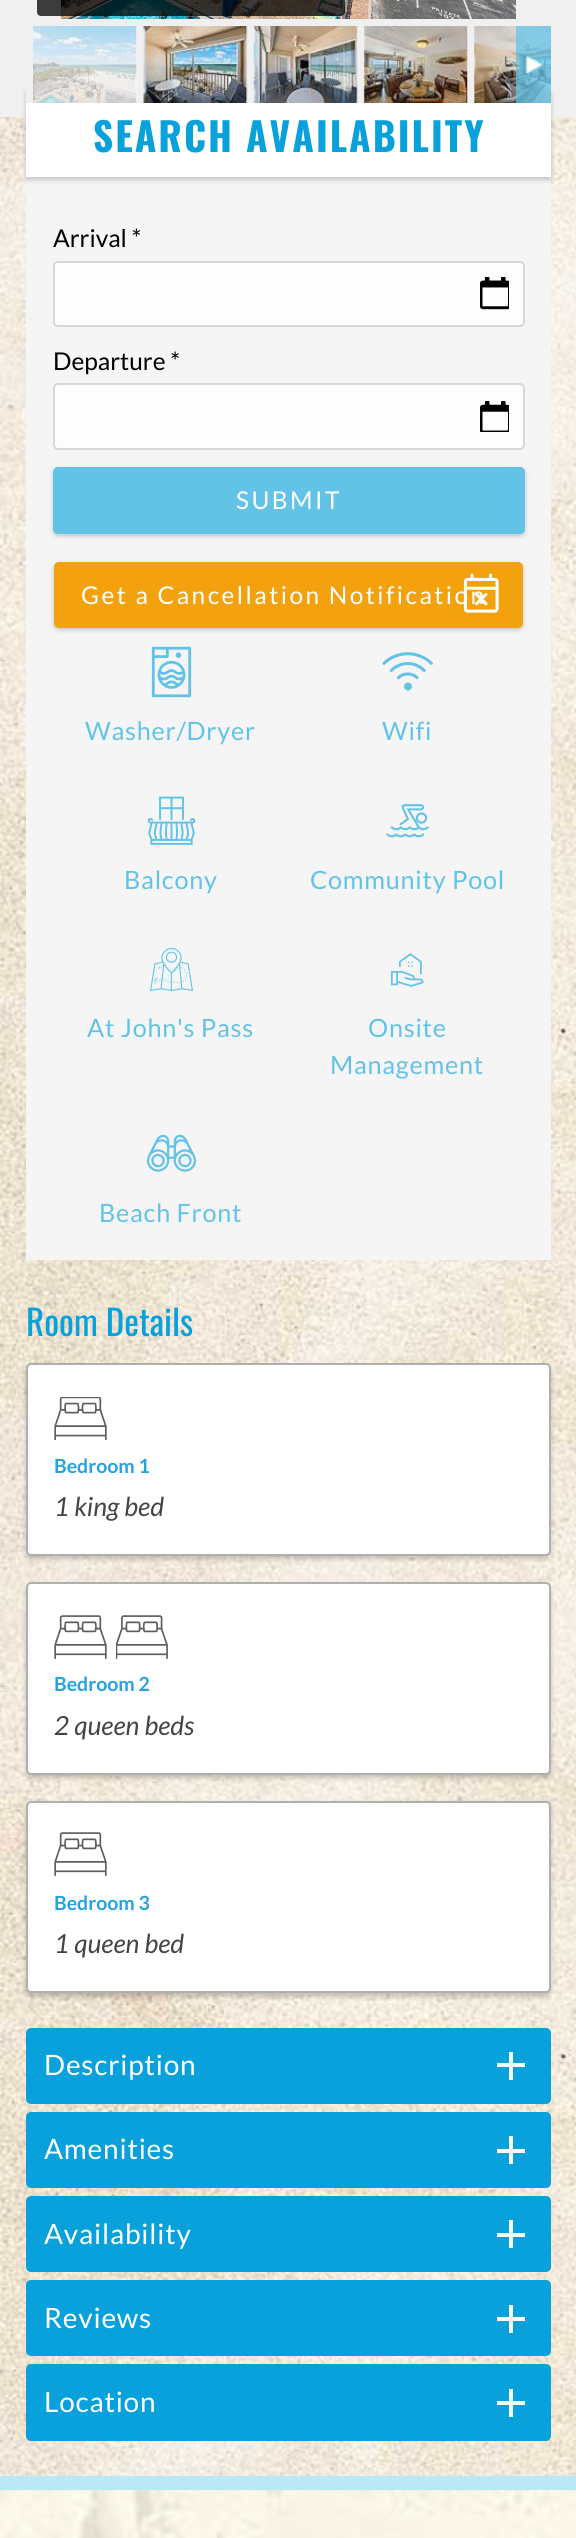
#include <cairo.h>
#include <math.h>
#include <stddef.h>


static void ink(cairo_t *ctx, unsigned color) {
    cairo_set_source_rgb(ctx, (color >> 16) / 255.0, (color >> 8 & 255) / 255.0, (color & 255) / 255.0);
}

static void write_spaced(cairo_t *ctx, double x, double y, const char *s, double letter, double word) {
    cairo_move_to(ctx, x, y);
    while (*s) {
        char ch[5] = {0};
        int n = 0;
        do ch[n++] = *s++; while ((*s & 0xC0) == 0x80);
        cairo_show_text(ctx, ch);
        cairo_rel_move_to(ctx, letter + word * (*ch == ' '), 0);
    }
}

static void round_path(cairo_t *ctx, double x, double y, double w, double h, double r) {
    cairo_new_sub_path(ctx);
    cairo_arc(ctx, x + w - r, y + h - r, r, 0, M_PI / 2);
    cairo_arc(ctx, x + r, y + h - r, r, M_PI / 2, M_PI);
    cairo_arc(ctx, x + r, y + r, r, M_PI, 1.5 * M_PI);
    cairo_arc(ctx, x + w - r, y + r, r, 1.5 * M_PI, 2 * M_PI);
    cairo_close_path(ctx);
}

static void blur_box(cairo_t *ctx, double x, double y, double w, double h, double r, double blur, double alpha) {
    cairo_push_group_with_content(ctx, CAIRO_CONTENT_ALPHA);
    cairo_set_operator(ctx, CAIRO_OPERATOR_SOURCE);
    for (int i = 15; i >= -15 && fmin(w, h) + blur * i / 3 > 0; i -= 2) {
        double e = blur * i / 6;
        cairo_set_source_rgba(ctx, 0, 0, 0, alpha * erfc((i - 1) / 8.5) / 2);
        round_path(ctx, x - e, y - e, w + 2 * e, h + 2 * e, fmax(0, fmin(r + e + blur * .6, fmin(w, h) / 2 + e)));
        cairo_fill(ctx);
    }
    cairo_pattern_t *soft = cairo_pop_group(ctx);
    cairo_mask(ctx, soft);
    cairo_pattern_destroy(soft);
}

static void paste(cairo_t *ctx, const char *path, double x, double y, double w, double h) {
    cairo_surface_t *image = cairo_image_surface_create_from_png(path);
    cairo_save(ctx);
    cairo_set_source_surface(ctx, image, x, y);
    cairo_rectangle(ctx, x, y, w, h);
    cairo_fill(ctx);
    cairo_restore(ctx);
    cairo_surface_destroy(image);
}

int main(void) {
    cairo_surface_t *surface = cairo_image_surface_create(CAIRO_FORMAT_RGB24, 576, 2538);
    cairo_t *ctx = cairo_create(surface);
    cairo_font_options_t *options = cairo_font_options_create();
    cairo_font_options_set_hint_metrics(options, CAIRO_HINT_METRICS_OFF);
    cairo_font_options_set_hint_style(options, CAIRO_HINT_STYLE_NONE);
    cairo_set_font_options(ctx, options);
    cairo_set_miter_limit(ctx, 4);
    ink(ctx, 0xFFFFFF);
    cairo_paint(ctx);
    paste(ctx, "media/1.png", 0, 117, 576, 2374);
    ink(ctx, 0xF0F0F0);
    cairo_rectangle(ctx, 0, 0, 576, 117);
    cairo_fill(ctx);
    paste(ctx, "media/2.png", 61, 0, 455, 19);
    cairo_set_source_rgba(ctx, 0, 0, 0, 0.75);
    round_path(ctx, 37, -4, 308, 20, 4);
    cairo_fill(ctx);
    ink(ctx, 0xF5F5F5);
    cairo_rectangle(ctx, 26, 177, 525, 1083);
    cairo_fill(ctx);
    ink(ctx, 0x000000);
    blur_box(ctx, 26, 93, 525, 87, 0, 2.5, 0.2);
    ink(ctx, 0xF0F0F0);
    cairo_rectangle(ctx, 26, 89, 449, 14);
    cairo_fill(ctx);
    ink(ctx, 0xF5F5F5);
    cairo_rectangle(ctx, 33, 26, 104, 77);
    cairo_fill(ctx);
    paste(ctx, "media/3.png", 33, 26, 104, 77);
    paste(ctx, "media/4.png", 143, 26, 105, 77);
    paste(ctx, "media/5.png", 253, 26, 105, 77);
    paste(ctx, "media/6.png", 363, 26, 105, 77);
    paste(ctx, "media/7.png", 474, 26, 77, 77);
    cairo_set_source_rgba(ctx, 0.388, 0.765, 0.906, 0.75);
    cairo_rectangle(ctx, 516, 26, 35, 77);
    cairo_fill(ctx);
    paste(ctx, "media/8.png", 526, 55, 17, 19);
    ink(ctx, 0xFFFFFF);
    cairo_rectangle(ctx, 26, 103, 525, 74);
    cairo_fill(ctx);
    cairo_select_font_face(ctx, "Oswald", CAIRO_FONT_SLANT_NORMAL, CAIRO_FONT_WEIGHT_BOLD);
    cairo_set_font_size(ctx, 39.25);
    ink(ctx, 0x09A1DC);
    write_spaced(ctx, 93, 152, "SEARCH AVAILABILITY", 2, 0);
    cairo_select_font_face(ctx, "Lato", CAIRO_FONT_SLANT_NORMAL, CAIRO_FONT_WEIGHT_NORMAL);
    cairo_set_font_size(ctx, 24.5);
    ink(ctx, 0x000000);
    cairo_move_to(ctx, 53, 247);
    cairo_show_text(ctx, "Arrival *");
    ink(ctx, 0xFDFDFD);
    round_path(ctx, 53, 261, 472, 66, 5);
    cairo_fill(ctx);
    paste(ctx, "media/9.png", 480, 277, 29, 33);
    round_path(ctx, 54, 262, 470, 64, 4);
    cairo_set_source_rgba(ctx, 0, 0, 0, 0.15);
    cairo_stroke(ctx);
    ink(ctx, 0x000000);
    cairo_move_to(ctx, 53, 370);
    cairo_show_text(ctx, "Departure *");
    ink(ctx, 0xFDFDFD);
    round_path(ctx, 53, 383, 472, 67, 5);
    cairo_fill(ctx);
    paste(ctx, "media/10.png", 480, 401, 29, 31);
    round_path(ctx, 54, 384, 470, 65, 4);
    cairo_set_source_rgba(ctx, 0, 0, 0, 0.15);
    cairo_stroke(ctx);
    ink(ctx, 0x000000);
    blur_box(ctx, 53, 469, 472, 67, 5, 2.5, 0.2);
    ink(ctx, 0x63C3E7);
    round_path(ctx, 53, 467, 472, 67, 5);
    cairo_fill(ctx);
    ink(ctx, 0xFFFFFF);
    write_spaced(ctx, 236, 509, "SUBMIT", 2.45, 0);
    ink(ctx, 0x000000);
    blur_box(ctx, 54, 564, 469, 66, 5, 2.5, 0.2);
    ink(ctx, 0xF3A10D);
    round_path(ctx, 54, 562, 469, 66, 5);
    cairo_fill(ctx);
    ink(ctx, 0xFFFFFF);
    write_spaced(ctx, 81, 604, "Get a Cancellation Notification", 2.45, 0);
    paste(ctx, "media/11.png", 463, 573, 36, 40);
    paste(ctx, "media/12.png", 151, 646, 41, 52);
    cairo_set_font_size(ctx, 25.25);
    ink(ctx, 0x63C3E7);
    write_spaced(ctx, 85, 740, "Washer/Dryer", 0.75, 0);
    paste(ctx, "media/13.png", 382, 652, 51, 39);
    write_spaced(ctx, 382, 740, "Wifi", 0.75, 0);
    paste(ctx, "media/14.png", 147, 796, 49, 49);
    write_spaced(ctx, 124, 889, "Balcony", 0.75, 0);
    paste(ctx, "media/15.png", 386, 804, 43, 34);
    write_spaced(ctx, 310, 889, "Community Pool", 0.75, 0);
    paste(ctx, "media/16.png", 149, 947, 44, 45);
    write_spaced(ctx, 87, 1037, "At John's Pass", 0.75, 0);
    paste(ctx, "media/17.png", 390, 953, 34, 34);
    write_spaced(ctx, 368, 1037, "Onsite", 0.75, 0);
    write_spaced(ctx, 330, 1074, "Management", 0.75, 0);
    paste(ctx, "media/18.png", 146, 1134, 51, 38);
    write_spaced(ctx, 99, 1222, "Beach Front", 0.75, 0);
    cairo_select_font_face(ctx, "Oswald", CAIRO_FONT_SLANT_NORMAL, CAIRO_FONT_WEIGHT_NORMAL);
    cairo_set_font_size(ctx, 35);
    ink(ctx, 0x09A1DC);
    cairo_move_to(ctx, 26, 1336);
    cairo_show_text(ctx, "Room Details");
    ink(ctx, 0x000000);
    blur_box(ctx, 26, 1367, 525, 192, 5, 2.5, 0.2);
    ink(ctx, 0xFFFFFF);
    round_path(ctx, 27, 1364, 523, 191, 4);
    cairo_fill_preserve(ctx);
    ink(ctx, 0xAFAFAF);
    cairo_stroke(ctx);
    paste(ctx, "media/19.png", 54, 1397, 53, 43);
    cairo_select_font_face(ctx, "Lato", CAIRO_FONT_SLANT_NORMAL, CAIRO_FONT_WEIGHT_BOLD);
    cairo_set_font_size(ctx, 19.5);
    ink(ctx, 0x26A2E2);
    cairo_move_to(ctx, 54, 1473);
    cairo_show_text(ctx, "Bedroom 1");
    cairo_select_font_face(ctx, "Lato", CAIRO_FONT_SLANT_ITALIC, CAIRO_FONT_WEIGHT_NORMAL);
    cairo_set_font_size(ctx, 26.25);
    ink(ctx, 0x444444);
    cairo_move_to(ctx, 54, 1516);
    cairo_show_text(ctx, "1 king bed");
    ink(ctx, 0x000000);
    blur_box(ctx, 26, 1586, 525, 192, 5, 2.5, 0.2);
    ink(ctx, 0xFFFFFF);
    round_path(ctx, 27, 1583, 523, 191, 4);
    cairo_fill_preserve(ctx);
    ink(ctx, 0xAFAFAF);
    cairo_stroke(ctx);
    paste(ctx, "media/20.png", 54, 1615, 53, 44);
    paste(ctx, "media/21.png", 116, 1615, 52, 44);
    cairo_select_font_face(ctx, "Lato", CAIRO_FONT_SLANT_NORMAL, CAIRO_FONT_WEIGHT_BOLD);
    cairo_set_font_size(ctx, 19.5);
    ink(ctx, 0x26A2E2);
    cairo_move_to(ctx, 54, 1691);
    cairo_show_text(ctx, "Bedroom 2");
    cairo_select_font_face(ctx, "Lato", CAIRO_FONT_SLANT_ITALIC, CAIRO_FONT_WEIGHT_NORMAL);
    cairo_set_font_size(ctx, 26.25);
    ink(ctx, 0x444444);
    cairo_move_to(ctx, 54, 1735);
    cairo_show_text(ctx, "2 queen beds");
    ink(ctx, 0x000000);
    blur_box(ctx, 26, 1804, 525, 193, 5, 2.5, 0.2);
    ink(ctx, 0xFFFFFF);
    round_path(ctx, 27, 1802, 523, 190, 4);
    cairo_fill_preserve(ctx);
    ink(ctx, 0xAFAFAF);
    cairo_stroke(ctx);
    paste(ctx, "media/20.png", 54, 1832, 53, 44);
    cairo_select_font_face(ctx, "Lato", CAIRO_FONT_SLANT_NORMAL, CAIRO_FONT_WEIGHT_BOLD);
    cairo_set_font_size(ctx, 19.5);
    ink(ctx, 0x26A2E2);
    cairo_move_to(ctx, 54, 1910);
    cairo_show_text(ctx, "Bedroom 3");
    cairo_select_font_face(ctx, "Lato", CAIRO_FONT_SLANT_ITALIC, CAIRO_FONT_WEIGHT_NORMAL);
    cairo_set_font_size(ctx, 26.25);
    ink(ctx, 0x444444);
    cairo_move_to(ctx, 54, 1953);
    cairo_show_text(ctx, "1 queen bed");
    ink(ctx, 0x09A1DC);
    round_path(ctx, 26, 2028, 525, 76, 5);
    cairo_fill(ctx);
    cairo_select_font_face(ctx, "Lato", CAIRO_FONT_SLANT_NORMAL, CAIRO_FONT_WEIGHT_NORMAL);
    cairo_set_font_size(ctx, 28);
    ink(ctx, 0xFFFFFF);
    write_spaced(ctx, 44, 2075, "Description", 0.8, 0);
    cairo_rectangle(ctx, 497, 2063, 28, 4);
    cairo_fill(ctx);
    cairo_rectangle(ctx, 509, 2052, 4, 28);
    cairo_fill(ctx);
    ink(ctx, 0x09A1DC);
    round_path(ctx, 26, 2112, 525, 76, 5);
    cairo_fill(ctx);
    ink(ctx, 0xFFFFFF);
    write_spaced(ctx, 44, 2159, "Amenities", 0.8, 0);
    cairo_rectangle(ctx, 497, 2149, 28, 4);
    cairo_fill(ctx);
    cairo_rectangle(ctx, 509, 2136, 4, 28);
    cairo_fill(ctx);
    ink(ctx, 0x09A1DC);
    round_path(ctx, 26, 2196, 525, 76, 5);
    cairo_fill(ctx);
    ink(ctx, 0xFFFFFF);
    write_spaced(ctx, 44, 2244, "Availability", 0.8, 0);
    cairo_rectangle(ctx, 497, 2233, 28, 4);
    cairo_fill(ctx);
    cairo_rectangle(ctx, 509, 2220, 4, 28);
    cairo_fill(ctx);
    ink(ctx, 0x09A1DC);
    round_path(ctx, 26, 2280, 525, 76, 5);
    cairo_fill(ctx);
    ink(ctx, 0xFFFFFF);
    write_spaced(ctx, 44, 2328, "Reviews", 0.8, 0);
    cairo_rectangle(ctx, 497, 2317, 28, 4);
    cairo_fill(ctx);
    cairo_rectangle(ctx, 509, 2305, 4, 28);
    cairo_fill(ctx);
    ink(ctx, 0x09A1DC);
    round_path(ctx, 26, 2364, 525, 77, 5);
    cairo_fill(ctx);
    ink(ctx, 0xFFFFFF);
    write_spaced(ctx, 44, 2412, "Location", 0.8, 0);
    cairo_rectangle(ctx, 497, 2401, 28, 4);
    cairo_fill(ctx);
    cairo_rectangle(ctx, 509, 2389, 4, 28);
    cairo_fill(ctx);
    paste(ctx, "media/22.png", 0, 2490, 576, 48);
    ink(ctx, 0xBBE8F5);
    cairo_rectangle(ctx, 0, 2476, 576, 14);
    cairo_fill(ctx);
    cairo_surface_write_to_png(surface, "image.png");
    cairo_font_options_destroy(options);
    cairo_destroy(ctx);
    cairo_surface_destroy(surface);
    return 0;
}
